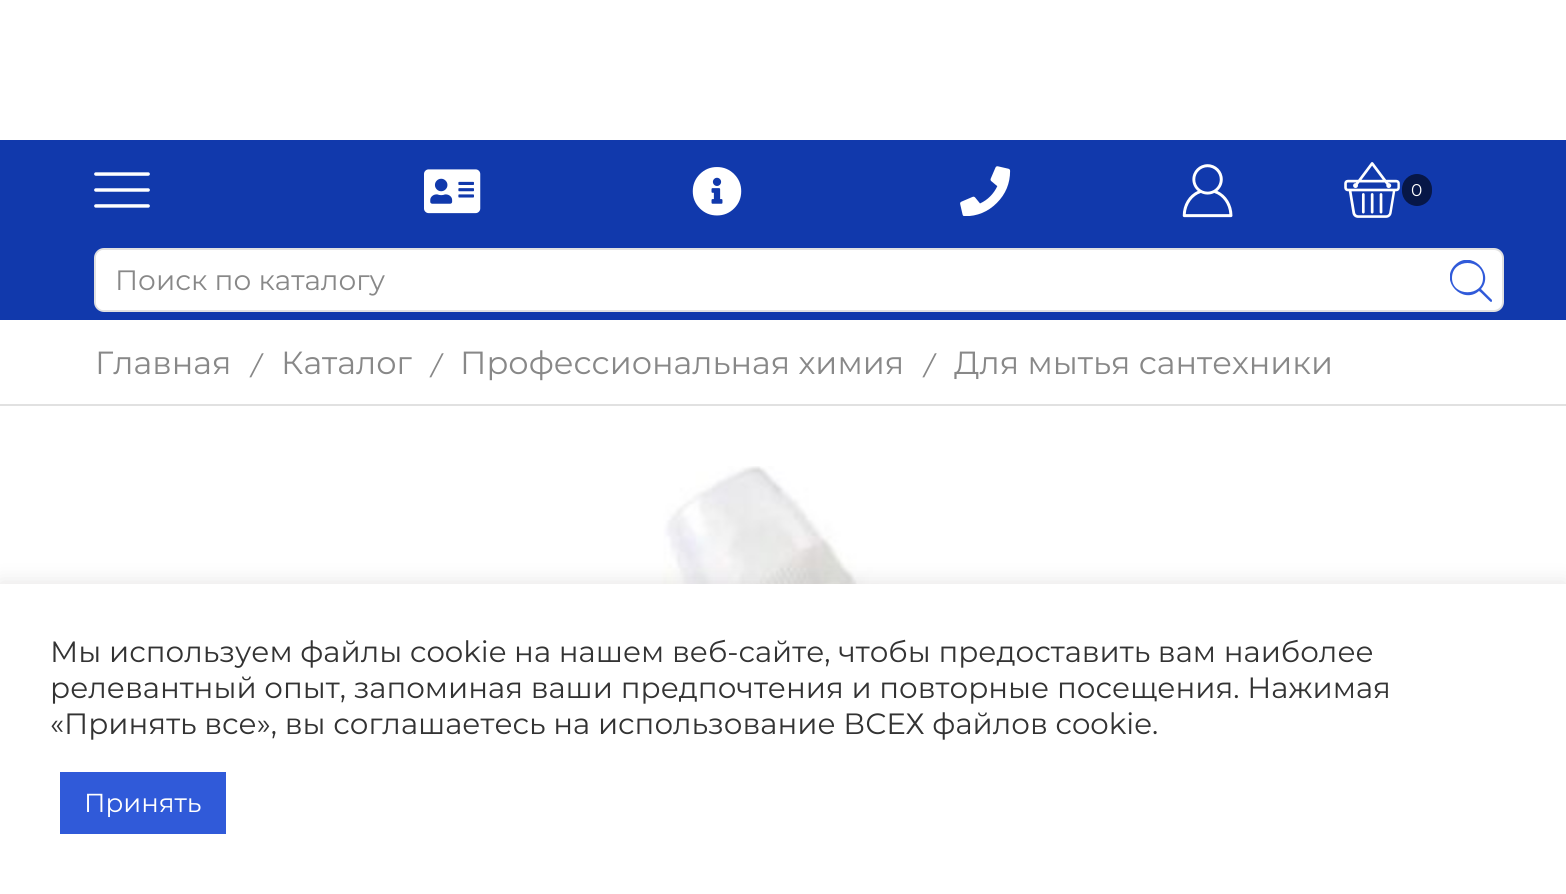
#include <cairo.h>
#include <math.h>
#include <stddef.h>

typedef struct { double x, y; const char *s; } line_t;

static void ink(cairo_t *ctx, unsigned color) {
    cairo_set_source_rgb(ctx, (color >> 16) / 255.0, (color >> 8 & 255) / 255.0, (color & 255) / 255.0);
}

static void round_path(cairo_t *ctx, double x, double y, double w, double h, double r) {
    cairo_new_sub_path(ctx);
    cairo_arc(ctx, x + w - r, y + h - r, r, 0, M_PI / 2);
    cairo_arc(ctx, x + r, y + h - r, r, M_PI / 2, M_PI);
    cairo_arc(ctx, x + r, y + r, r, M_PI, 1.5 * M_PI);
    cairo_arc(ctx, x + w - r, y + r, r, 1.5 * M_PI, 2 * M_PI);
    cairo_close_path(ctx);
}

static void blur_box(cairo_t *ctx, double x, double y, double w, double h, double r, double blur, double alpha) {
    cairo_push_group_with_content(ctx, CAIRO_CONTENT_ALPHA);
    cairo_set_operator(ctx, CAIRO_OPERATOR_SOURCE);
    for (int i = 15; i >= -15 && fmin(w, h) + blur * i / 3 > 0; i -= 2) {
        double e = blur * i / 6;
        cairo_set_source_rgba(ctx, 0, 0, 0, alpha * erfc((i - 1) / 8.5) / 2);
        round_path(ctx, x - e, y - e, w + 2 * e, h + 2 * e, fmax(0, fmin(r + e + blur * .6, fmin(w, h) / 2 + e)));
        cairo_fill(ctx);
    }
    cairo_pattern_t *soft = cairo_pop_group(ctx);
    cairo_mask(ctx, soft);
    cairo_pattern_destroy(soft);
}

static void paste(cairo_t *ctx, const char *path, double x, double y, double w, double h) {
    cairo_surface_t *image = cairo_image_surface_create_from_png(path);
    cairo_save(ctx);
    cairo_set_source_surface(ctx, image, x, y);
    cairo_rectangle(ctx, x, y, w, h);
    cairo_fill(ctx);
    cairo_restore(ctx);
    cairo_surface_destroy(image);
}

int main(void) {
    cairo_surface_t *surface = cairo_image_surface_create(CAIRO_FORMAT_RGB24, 1566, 894);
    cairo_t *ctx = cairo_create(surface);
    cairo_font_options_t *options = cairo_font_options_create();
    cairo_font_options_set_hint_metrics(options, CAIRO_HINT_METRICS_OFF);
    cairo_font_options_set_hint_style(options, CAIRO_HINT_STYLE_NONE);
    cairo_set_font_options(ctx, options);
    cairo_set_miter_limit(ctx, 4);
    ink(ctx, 0xFFFFFF);
    cairo_paint(ctx);
    ink(ctx, 0x1139AC);
    cairo_rectangle(ctx, 0, 140, 1566, 180);
    cairo_fill(ctx);
    paste(ctx, "media/1.png", 94, 172, 56, 36);
    paste(ctx, "media/2.png", 424, 169, 57, 45);
    paste(ctx, "media/3.png", 692, 167, 50, 49);
    paste(ctx, "media/4.png", 960, 166, 51, 50);
    paste(ctx, "media/5.png", 1182, 164, 51, 54);
    paste(ctx, "media/6.png", 1344, 162, 56, 56);
    ink(ctx, 0x071747);
    round_path(ctx, 1402, 174, 30, 32, 15);
    cairo_fill(ctx);
    cairo_select_font_face(ctx, "Montserrat", CAIRO_FONT_SLANT_NORMAL, CAIRO_FONT_WEIGHT_NORMAL);
    cairo_set_font_size(ctx, 17);
    ink(ctx, 0xFFFFFF);
    cairo_move_to(ctx, 1411, 196);
    cairo_show_text(ctx, "0");
    round_path(ctx, 95, 249, 1408, 62, 9);
    cairo_fill_preserve(ctx);
    ink(ctx, 0xE1E1E1);
    cairo_stroke(ctx);
    ink(ctx, 0xFFFFFF);
    cairo_new_path(ctx);
    cairo_move_to(ctx, 104, 250);
    cairo_line_to(ctx, 1442, 250);
    cairo_line_to(ctx, 1442, 310);
    cairo_line_to(ctx, 104, 310);
    cairo_curve_to(ctx, 99.5, 310, 96, 306.5, 96, 302);
    cairo_line_to(ctx, 96, 258);
    cairo_curve_to(ctx, 96, 253.5, 99.5, 250, 104, 250);
    cairo_close_path(ctx);
    cairo_fill(ctx);
    cairo_set_font_size(ctx, 28);
    ink(ctx, 0x888888);
    cairo_move_to(ctx, 115, 290);
    cairo_show_text(ctx, "Поиск по каталогу");
    cairo_save(ctx);
    cairo_rectangle(ctx, 1450, 260, 42, 42);
    cairo_clip(ctx);
    ink(ctx, 0x305AD9);
    cairo_new_path(ctx);
    cairo_move_to(ctx, 1492, 300);
    cairo_line_to(ctx, 1481, 289);
    cairo_curve_to(ctx, 1495, 273, 1471, 249, 1455, 265);
    cairo_curve_to(ctx, 1439, 281, 1463, 305, 1479, 291);
    cairo_curve_to(ctx, 1481, 292, 1490, 302, 1491, 302);
    cairo_curve_to(ctx, 1492, 302, 1492, 301, 1492, 300);
    cairo_close_path(ctx);
    cairo_move_to(ctx, 1483, 278);
    cairo_curve_to(ctx, 1483, 297, 1452, 297, 1452, 278);
    cairo_curve_to(ctx, 1452, 258, 1483, 258, 1483, 278);
    cairo_close_path(ctx);
    cairo_fill(ctx);
    cairo_restore(ctx);
    ink(ctx, 0xE1E1E1);
    cairo_rectangle(ctx, 0, 404, 1566, 2);
    cairo_fill(ctx);
    cairo_set_font_size(ctx, 32);
    ink(ctx, 0x888888);
    cairo_move_to(ctx, 95, 374);
    cairo_show_text(ctx, "Главная");
    cairo_select_font_face(ctx, "Liberation Serif", CAIRO_FONT_SLANT_ITALIC, CAIRO_FONT_WEIGHT_NORMAL);
    cairo_set_font_size(ctx, 36);
    cairo_move_to(ctx, 251, 377);
    cairo_show_text(ctx, "/");
    cairo_select_font_face(ctx, "Montserrat", CAIRO_FONT_SLANT_NORMAL, CAIRO_FONT_WEIGHT_NORMAL);
    cairo_set_font_size(ctx, 32);
    cairo_move_to(ctx, 281, 374);
    cairo_show_text(ctx, "Каталог");
    cairo_select_font_face(ctx, "Liberation Serif", CAIRO_FONT_SLANT_ITALIC, CAIRO_FONT_WEIGHT_NORMAL);
    cairo_set_font_size(ctx, 36);
    cairo_move_to(ctx, 431, 377);
    cairo_show_text(ctx, "/");
    cairo_select_font_face(ctx, "Montserrat", CAIRO_FONT_SLANT_NORMAL, CAIRO_FONT_WEIGHT_NORMAL);
    cairo_set_font_size(ctx, 32);
    cairo_move_to(ctx, 460, 374);
    cairo_show_text(ctx, "Профессиональная химия");
    cairo_select_font_face(ctx, "Liberation Serif", CAIRO_FONT_SLANT_ITALIC, CAIRO_FONT_WEIGHT_NORMAL);
    cairo_set_font_size(ctx, 36);
    cairo_move_to(ctx, 924, 377);
    cairo_show_text(ctx, "/");
    cairo_select_font_face(ctx, "Montserrat", CAIRO_FONT_SLANT_NORMAL, CAIRO_FONT_WEIGHT_NORMAL);
    cairo_set_font_size(ctx, 32);
    cairo_move_to(ctx, 954, 374);
    cairo_show_text(ctx, "Для мытья сантехники");
    paste(ctx, "media/7.png", 581, 466, 358, 118);
    ink(ctx, 0xACABAB);
    blur_box(ctx, 0, 582, 1566, 310, 0, 10, 0.3);
    ink(ctx, 0xFFFFFF);
    cairo_rectangle(ctx, 0, 584, 1566, 310);
    cairo_fill(ctx);
    cairo_set_font_size(ctx, 29.35);
    ink(ctx, 0x333333);
    {
        static const line_t items[] = {
            {50, 662, "Мы используем файлы cookie на нашем веб-сайте, чтобы предоставить вам наиболее"},
            {50, 698, "релевантный опыт, запоминая ваши предпочтения и повторные посещения. Нажимая"},
            {50, 734, "«Принять все», вы соглашаетесь на использование ВСЕХ файлов cookie."},
        };
        for (size_t i = 0; i < sizeof items / sizeof *items; i++) {
            cairo_move_to(ctx, items[i].x, items[i].y);
            cairo_show_text(ctx, items[i].s);
        }
    }
    ink(ctx, 0x305AD9);
    cairo_rectangle(ctx, 60, 772, 166, 62);
    cairo_fill(ctx);
    cairo_set_font_size(ctx, 26);
    ink(ctx, 0xFFFFFF);
    cairo_move_to(ctx, 84, 812);
    cairo_show_text(ctx, "Принять");
    cairo_surface_write_to_png(surface, "image.png");
    cairo_font_options_destroy(options);
    cairo_destroy(ctx);
    cairo_surface_destroy(surface);
    return 0;
}
